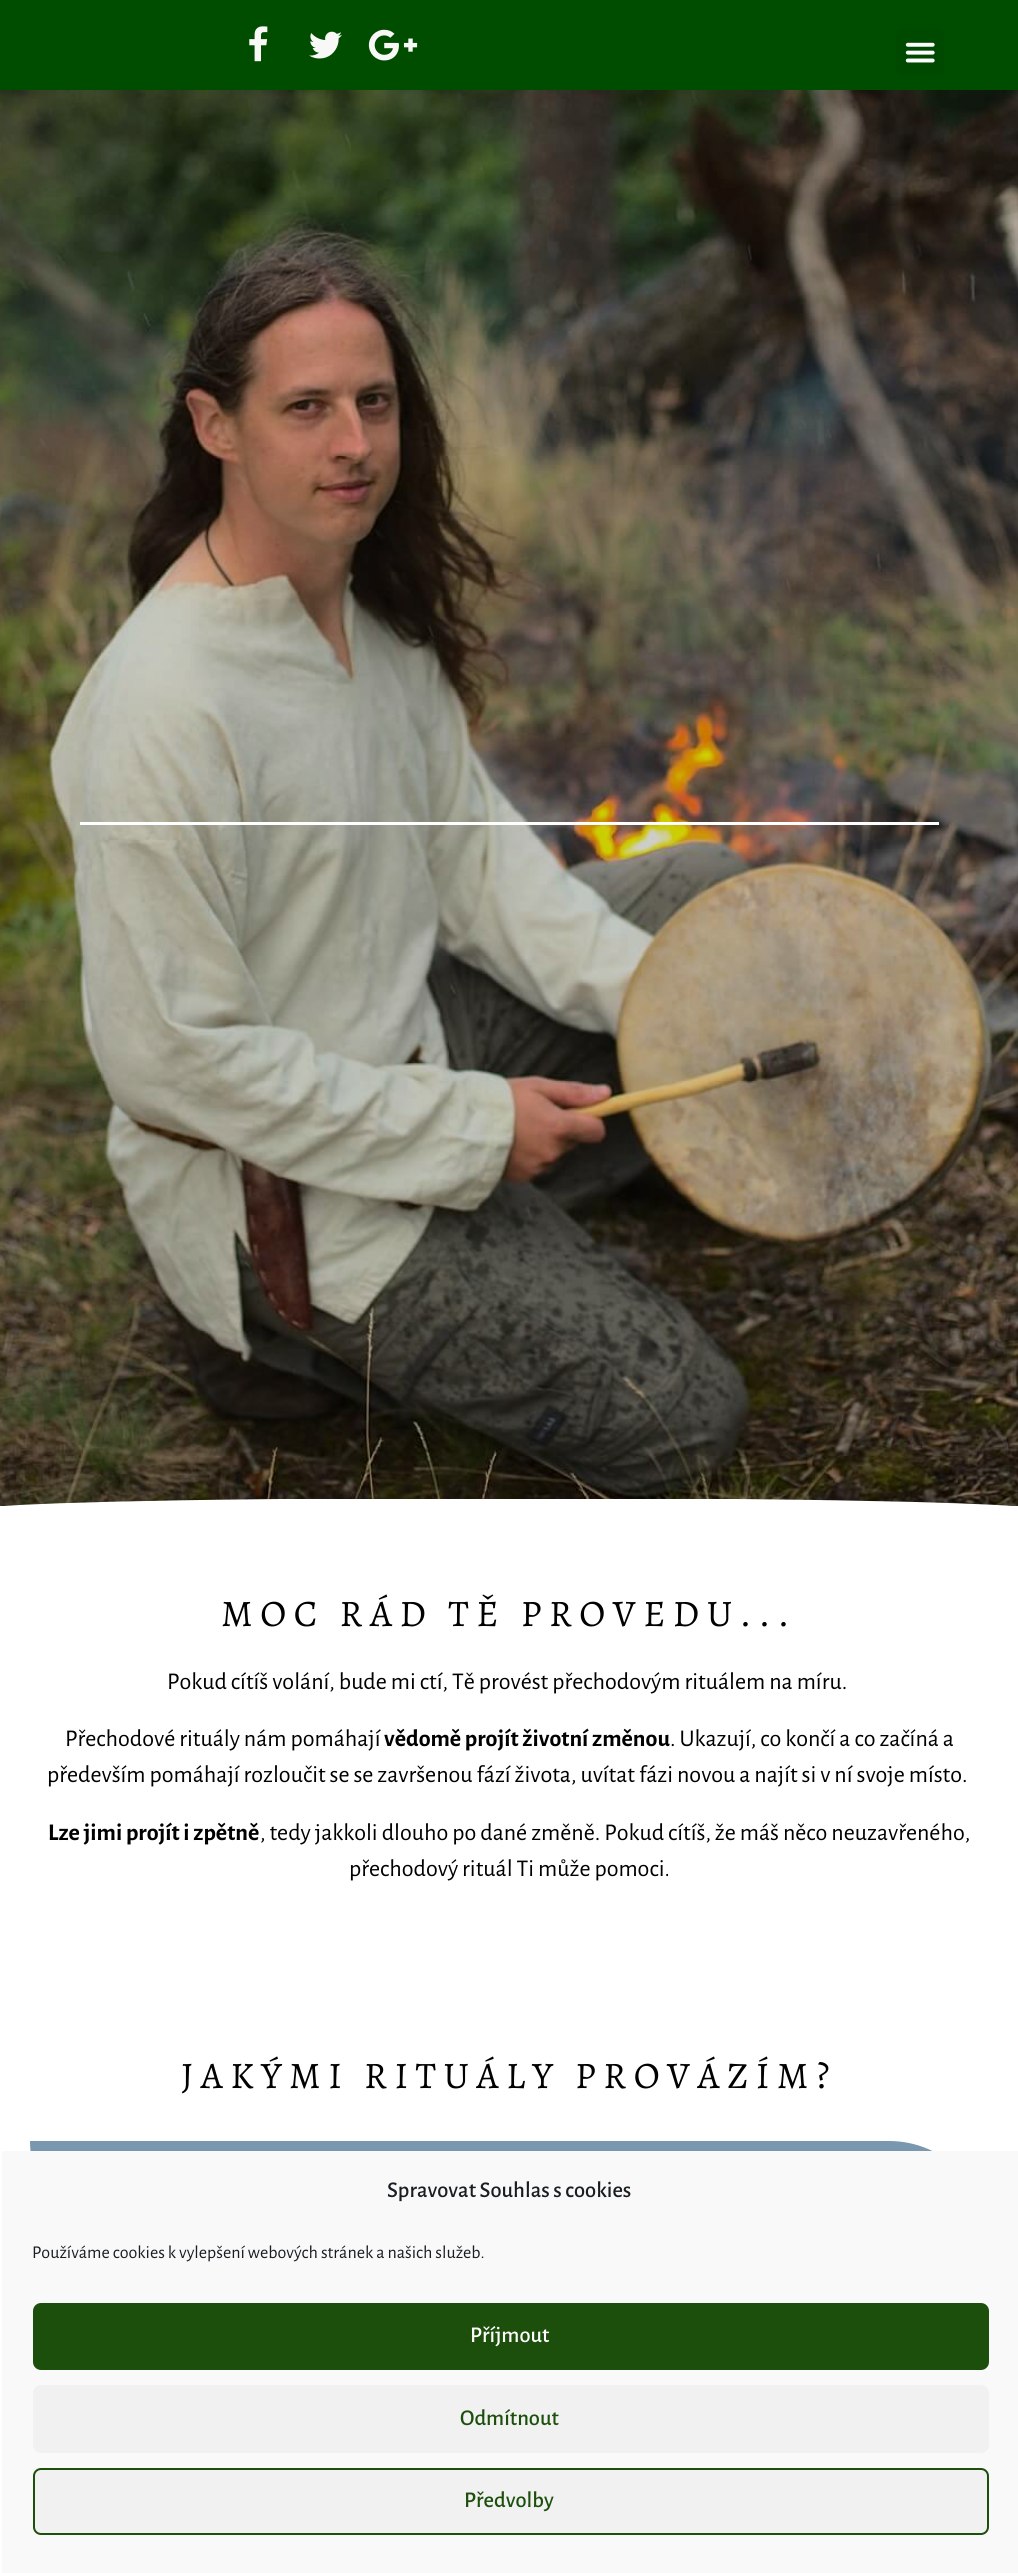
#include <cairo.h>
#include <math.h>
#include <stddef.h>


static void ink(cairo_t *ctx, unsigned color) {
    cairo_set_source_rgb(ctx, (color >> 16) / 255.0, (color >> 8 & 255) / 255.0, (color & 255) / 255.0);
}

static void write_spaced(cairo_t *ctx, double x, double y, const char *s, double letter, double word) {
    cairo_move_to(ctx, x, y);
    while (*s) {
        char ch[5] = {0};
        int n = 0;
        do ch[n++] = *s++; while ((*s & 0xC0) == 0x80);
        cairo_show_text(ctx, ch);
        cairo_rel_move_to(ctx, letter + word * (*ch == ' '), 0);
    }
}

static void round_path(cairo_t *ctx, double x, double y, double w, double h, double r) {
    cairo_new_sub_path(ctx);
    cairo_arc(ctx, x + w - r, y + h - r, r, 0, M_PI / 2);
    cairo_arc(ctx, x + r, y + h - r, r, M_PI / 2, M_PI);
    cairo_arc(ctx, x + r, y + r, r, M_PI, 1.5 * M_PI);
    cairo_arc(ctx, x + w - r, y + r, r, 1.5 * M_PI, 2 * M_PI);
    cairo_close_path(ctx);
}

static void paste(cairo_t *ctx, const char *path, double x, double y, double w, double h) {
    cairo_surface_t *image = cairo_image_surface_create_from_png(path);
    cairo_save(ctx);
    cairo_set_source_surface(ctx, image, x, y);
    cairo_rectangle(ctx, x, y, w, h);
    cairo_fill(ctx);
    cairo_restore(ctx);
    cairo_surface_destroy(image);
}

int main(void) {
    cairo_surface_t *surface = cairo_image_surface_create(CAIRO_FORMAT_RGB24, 1018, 2573);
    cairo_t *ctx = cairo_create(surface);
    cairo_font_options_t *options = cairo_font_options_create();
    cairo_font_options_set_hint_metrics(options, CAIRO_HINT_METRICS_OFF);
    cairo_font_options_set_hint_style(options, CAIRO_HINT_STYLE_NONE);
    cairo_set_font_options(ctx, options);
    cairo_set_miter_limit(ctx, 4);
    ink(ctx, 0xFFFFFF);
    cairo_paint(ctx);
    ink(ctx, 0x004D00);
    cairo_rectangle(ctx, 0, 0, 1018, 90);
    cairo_fill(ctx);
    paste(ctx, "media/1.png", 249, 26, 19, 36);
    paste(ctx, "media/2.png", 309, 31, 33, 28);
    paste(ctx, "media/3.png", 368, 29, 50, 32);
    ink(ctx, 0x004900);
    round_path(ctx, 896, 29, 48, 46, 5);
    cairo_fill(ctx);
    paste(ctx, "media/4.png", 905, 42, 30, 21);
    paste(ctx, "media/5.png", 0, 90, 1018, 1416);
    ink(ctx, 0xFFFFFF);
    cairo_rectangle(ctx, 80, 822, 859, 3);
    cairo_fill(ctx);
    cairo_save(ctx);
    cairo_rectangle(ctx, 0, 1499, 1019, 9);
    cairo_clip(ctx);
    cairo_new_path(ctx);
    cairo_move_to(ctx, -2, 1507);
    cairo_line_to(ctx, 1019, 1507);
    cairo_curve_to(ctx, 1018, 1505, 889, 1498, 508, 1498);
    cairo_curve_to(ctx, 128, 1498, -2, 1505, -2, 1507);
    cairo_close_path(ctx);
    cairo_fill(ctx);
    cairo_restore(ctx);
    cairo_select_font_face(ctx, "Alegreya", CAIRO_FONT_SLANT_NORMAL, CAIRO_FONT_WEIGHT_NORMAL);
    cairo_set_font_size(ctx, 37.5);
    ink(ctx, 0x000000);
    write_spaced(ctx, 221, 1626, "MOC RÁD TĚ PROVEDU...", 7.5, 0);
    cairo_select_font_face(ctx, "Alegreya Sans", CAIRO_FONT_SLANT_NORMAL, CAIRO_FONT_WEIGHT_NORMAL);
    cairo_set_font_size(ctx, 24);
    cairo_move_to(ctx, 167, 1689);
    cairo_show_text(ctx, "Pokud cítíš volání, bude mi ctí, Tě provést přechodovým rituálem na míru.");
    cairo_move_to(ctx, 65, 1746);
    cairo_show_text(ctx, "Přechodové rituály nám pomáhají");
    cairo_select_font_face(ctx, "Alegreya Sans", CAIRO_FONT_SLANT_NORMAL, CAIRO_FONT_WEIGHT_BOLD);
    cairo_move_to(ctx, 384, 1746);
    cairo_show_text(ctx, "vědomě projít životní změnou");
    cairo_select_font_face(ctx, "Alegreya Sans", CAIRO_FONT_SLANT_NORMAL, CAIRO_FONT_WEIGHT_NORMAL);
    cairo_move_to(ctx, 670, 1746);
    cairo_show_text(ctx, ". Ukazují, co končí a co začíná a");
    cairo_move_to(ctx, 47, 1782);
    cairo_show_text(ctx, "především pomáhají rozloučit se se završenou fází života, uvítat fázi novou a najít si v ní svoje místo.");
    cairo_select_font_face(ctx, "Alegreya Sans", CAIRO_FONT_SLANT_NORMAL, CAIRO_FONT_WEIGHT_BOLD);
    cairo_move_to(ctx, 48, 1840);
    cairo_show_text(ctx, "Lze jimi projít i zpětně");
    cairo_select_font_face(ctx, "Alegreya Sans", CAIRO_FONT_SLANT_NORMAL, CAIRO_FONT_WEIGHT_NORMAL);
    cairo_move_to(ctx, 260, 1840);
    cairo_show_text(ctx, ", tedy jakkoli dlouho po dané změně. Pokud cítíš, že máš něco neuzavřeného,");
    cairo_move_to(ctx, 349, 1876);
    cairo_show_text(ctx, "přechodový rituál Ti může pomoci.");
    cairo_select_font_face(ctx, "Alegreya", CAIRO_FONT_SLANT_NORMAL, CAIRO_FONT_WEIGHT_NORMAL);
    cairo_set_font_size(ctx, 37.5);
    write_spaced(ctx, 181, 2088, "JAKÝMI RITUÁLY PROVÁZÍM?", 7.5, 0);
    ink(ctx, 0x7998B0);
    cairo_new_path(ctx);
    cairo_move_to(ctx, 30, 2141);
    cairo_line_to(ctx, 889, 2141);
    cairo_curve_to(ctx, 944, 2141, 989, 2186, 989, 2241);
    cairo_line_to(ctx, 130, 2241);
    cairo_curve_to(ctx, 75, 2241, 30, 2196, 30, 2141);
    cairo_close_path(ctx);
    cairo_fill(ctx);
    ink(ctx, 0xF9F9F9);
    cairo_rectangle(ctx, 2, 2151, 1016, 422);
    cairo_fill(ctx);
    cairo_select_font_face(ctx, "Alegreya Sans Medium", CAIRO_FONT_SLANT_NORMAL, CAIRO_FONT_WEIGHT_NORMAL);
    cairo_set_font_size(ctx, 22.5);
    ink(ctx, 0x191E23);
    cairo_move_to(ctx, 387, 2197);
    cairo_show_text(ctx, "Spravovat Souhlas s cookies");
    cairo_select_font_face(ctx, "Alegreya Sans", CAIRO_FONT_SLANT_NORMAL, CAIRO_FONT_WEIGHT_NORMAL);
    cairo_set_font_size(ctx, 18);
    cairo_move_to(ctx, 32, 2258);
    cairo_show_text(ctx, "Používáme cookies k vylepšení webových stránek a našich služeb.");
    ink(ctx, 0x1C4F0C);
    round_path(ctx, 34, 2304, 954, 65, 7);
    cairo_fill_preserve(ctx);
    cairo_stroke(ctx);
    cairo_select_font_face(ctx, "Alegreya Sans Medium", CAIRO_FONT_SLANT_NORMAL, CAIRO_FONT_WEIGHT_NORMAL);
    cairo_set_font_size(ctx, 22.5);
    ink(ctx, 0xFFFFFF);
    cairo_move_to(ctx, 470, 2342);
    cairo_show_text(ctx, "Příjmout");
    ink(ctx, 0xF1F1F1);
    round_path(ctx, 33, 2385, 956, 68, 8);
    cairo_fill(ctx);
    ink(ctx, 0x1C4F0C);
    cairo_move_to(ctx, 460, 2425);
    cairo_show_text(ctx, "Odmítnout");
    ink(ctx, 0xF1F1F1);
    round_path(ctx, 34, 2469, 954, 65, 7);
    cairo_fill_preserve(ctx);
    ink(ctx, 0x1C4F0C);
    cairo_stroke(ctx);
    cairo_move_to(ctx, 464, 2507);
    cairo_show_text(ctx, "Předvolby");
    cairo_surface_write_to_png(surface, "image.png");
    cairo_font_options_destroy(options);
    cairo_destroy(ctx);
    cairo_surface_destroy(surface);
    return 0;
}
